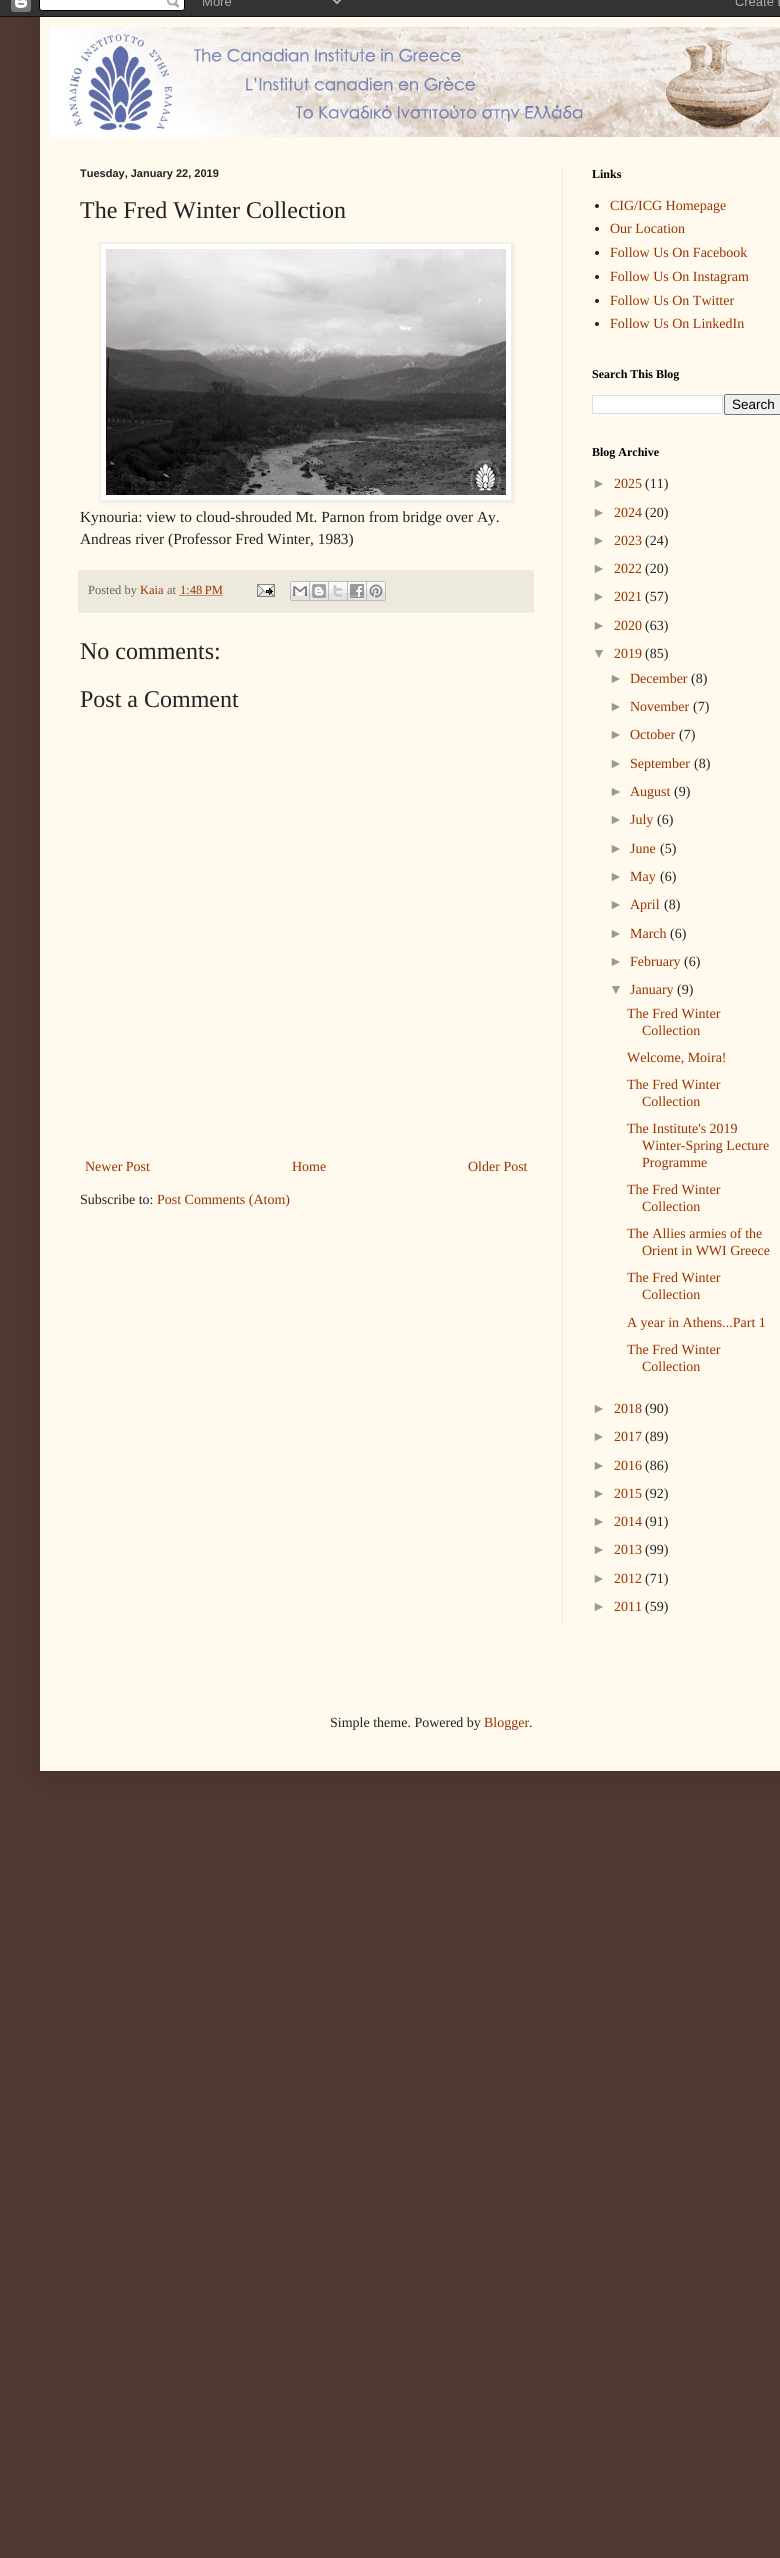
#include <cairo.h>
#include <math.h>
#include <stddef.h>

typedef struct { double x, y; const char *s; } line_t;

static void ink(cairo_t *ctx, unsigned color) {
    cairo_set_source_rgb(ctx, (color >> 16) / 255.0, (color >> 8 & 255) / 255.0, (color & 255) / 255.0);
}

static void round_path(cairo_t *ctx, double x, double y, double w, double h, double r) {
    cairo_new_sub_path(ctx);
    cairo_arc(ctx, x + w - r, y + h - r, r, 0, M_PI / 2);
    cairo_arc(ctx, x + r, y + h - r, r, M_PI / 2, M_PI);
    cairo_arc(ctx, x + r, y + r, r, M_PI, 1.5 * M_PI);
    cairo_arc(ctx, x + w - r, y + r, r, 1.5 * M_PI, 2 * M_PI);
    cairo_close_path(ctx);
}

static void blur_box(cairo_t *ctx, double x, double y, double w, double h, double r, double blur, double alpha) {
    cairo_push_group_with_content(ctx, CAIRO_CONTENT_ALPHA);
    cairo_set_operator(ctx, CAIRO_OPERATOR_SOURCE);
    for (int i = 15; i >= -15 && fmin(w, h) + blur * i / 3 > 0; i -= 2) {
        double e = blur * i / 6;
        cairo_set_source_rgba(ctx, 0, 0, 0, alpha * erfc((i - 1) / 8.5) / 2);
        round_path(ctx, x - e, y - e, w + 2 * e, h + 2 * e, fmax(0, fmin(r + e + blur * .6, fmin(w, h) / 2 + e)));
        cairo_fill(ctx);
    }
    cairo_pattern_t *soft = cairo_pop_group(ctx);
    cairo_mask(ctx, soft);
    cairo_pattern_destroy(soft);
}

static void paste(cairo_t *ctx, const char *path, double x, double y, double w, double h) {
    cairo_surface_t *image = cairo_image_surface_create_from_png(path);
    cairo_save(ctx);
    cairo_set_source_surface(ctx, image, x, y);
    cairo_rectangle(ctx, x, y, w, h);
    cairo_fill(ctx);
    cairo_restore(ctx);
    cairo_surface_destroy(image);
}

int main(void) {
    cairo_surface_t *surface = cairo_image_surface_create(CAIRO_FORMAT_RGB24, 780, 2558);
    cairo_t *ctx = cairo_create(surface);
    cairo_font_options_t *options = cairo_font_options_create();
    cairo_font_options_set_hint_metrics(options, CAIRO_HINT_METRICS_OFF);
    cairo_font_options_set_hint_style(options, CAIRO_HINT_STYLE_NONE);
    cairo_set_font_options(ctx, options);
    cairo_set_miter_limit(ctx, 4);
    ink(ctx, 0x513831);
    cairo_paint(ctx);
    ink(ctx, 0x000000);
    blur_box(ctx, 40, 17, 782, 1754, 0, 20, 0.15);
    paste(ctx, "media/1.png", 0, 0, 780, 17);
    ink(ctx, 0xFFF9EE);
    cairo_rectangle(ctx, 40, 17, 740, 1754);
    cairo_fill(ctx);
    paste(ctx, "media/2.png", 50, 27, 730, 110);
    ink(ctx, 0xEEE5DD);
    cairo_rectangle(ctx, 562, 167, 1, 1456);
    cairo_fill(ctx);
    cairo_select_font_face(ctx, "Liberation Sans", CAIRO_FONT_SLANT_NORMAL, CAIRO_FONT_WEIGHT_BOLD);
    cairo_set_font_size(ctx, 11);
    ink(ctx, 0x222222);
    cairo_move_to(ctx, 80, 177);
    cairo_show_text(ctx, "Tuesday, January 22, 2019");
    cairo_select_font_face(ctx, "Liberation Serif", CAIRO_FONT_SLANT_NORMAL, CAIRO_FONT_WEIGHT_NORMAL);
    cairo_set_font_size(ctx, 24);
    cairo_move_to(ctx, 80, 218);
    cairo_show_text(ctx, "The Fred Winter Collection");
    ink(ctx, 0x000000);
    blur_box(ctx, 101, 244, 412, 258, 0, 2.5, 0.1);
    ink(ctx, 0xFFFFFF);
    cairo_rectangle(ctx, 100.5, 243.5, 411, 257);
    cairo_fill_preserve(ctx);
    ink(ctx, 0xEEEEEE);
    cairo_set_line_width(ctx, 1);
    cairo_stroke(ctx);
    paste(ctx, "media/3.png", 106, 249, 400, 246);
    cairo_set_font_size(ctx, 15.4);
    ink(ctx, 0x222222);
    cairo_move_to(ctx, 80, 522);
    cairo_show_text(ctx, "Kynouria: view to cloud-shrouded Mt. Parnon from bridge over Ay.");
    cairo_move_to(ctx, 80, 544);
    cairo_show_text(ctx, "Andreas river (Professor Fred Winter, 1983)");
    ink(ctx, 0xEEE9DD);
    cairo_rectangle(ctx, 78, 570, 456, 42);
    cairo_fill(ctx);
    ink(ctx, 0xEEEEEE);
    cairo_rectangle(ctx, 78, 612, 456, 1);
    cairo_fill(ctx);
    cairo_set_font_size(ctx, 12.5);
    ink(ctx, 0x666555);
    cairo_move_to(ctx, 88, 594);
    cairo_show_text(ctx, "Posted by");
    ink(ctx, 0x993300);
    cairo_move_to(ctx, 140, 594);
    cairo_show_text(ctx, "Kaia");
    ink(ctx, 0x666555);
    cairo_move_to(ctx, 167, 594);
    cairo_show_text(ctx, "at");
    ink(ctx, 0x993300);
    cairo_move_to(ctx, 180, 594);
    cairo_show_text(ctx, "1:48 PM");
    cairo_new_path(ctx);
    cairo_move_to(ctx, 179.5, 595.5);
    cairo_line_to(ctx, 223, 595.5);
    cairo_set_dash(ctx, (double[]){1, 1}, 2, 0);
    cairo_stroke(ctx);
    paste(ctx, "media/4.png", 257, 584, 18, 13);
    paste(ctx, "media/5.png", 290, 581, 20, 20);
    paste(ctx, "media/6.png", 310, 581, 19, 20);
    paste(ctx, "media/7.png", 329, 581, 19, 20);
    paste(ctx, "media/8.png", 348, 581, 19, 20);
    paste(ctx, "media/9.png", 367, 581, 19, 20);
    cairo_set_font_size(ctx, 24);
    ink(ctx, 0x222222);
    cairo_move_to(ctx, 80, 659);
    cairo_show_text(ctx, "No comments:");
    cairo_move_to(ctx, 80, 707);
    cairo_show_text(ctx, "Post a Comment");
    cairo_set_font_size(ctx, 14);
    ink(ctx, 0x993300);
    {
        static const line_t items[] = {
            {85, 1171, "Newer Post"},
            {292, 1171, "Home"},
            {468, 1171, "Older Post"},
        };
        for (size_t i = 0; i < sizeof items / sizeof *items; i++) {
            cairo_move_to(ctx, items[i].x, items[i].y);
            cairo_show_text(ctx, items[i].s);
        }
    }
    ink(ctx, 0x222222);
    cairo_move_to(ctx, 80, 1204);
    cairo_show_text(ctx, "Subscribe to:");
    ink(ctx, 0x993300);
    cairo_move_to(ctx, 157, 1204);
    cairo_show_text(ctx, "Post Comments (Atom)");
    cairo_select_font_face(ctx, "Liberation Serif", CAIRO_FONT_SLANT_NORMAL, CAIRO_FONT_WEIGHT_BOLD);
    cairo_set_font_size(ctx, 12);
    ink(ctx, 0x000000);
    cairo_move_to(ctx, 592, 178);
    cairo_show_text(ctx, "Links");
    ink(ctx, 0x222222);
    cairo_new_path(ctx);
    cairo_arc(ctx, 597, 206, 2, 0, 2 * M_PI);
    cairo_fill(ctx);
    cairo_select_font_face(ctx, "Liberation Serif", CAIRO_FONT_SLANT_NORMAL, CAIRO_FONT_WEIGHT_NORMAL);
    cairo_set_font_size(ctx, 14);
    ink(ctx, 0x993300);
    cairo_move_to(ctx, 610, 210);
    cairo_show_text(ctx, "CIG/ICG Homepage");
    ink(ctx, 0x222222);
    cairo_new_path(ctx);
    cairo_arc(ctx, 597, 229, 2, 0, 2 * M_PI);
    cairo_fill(ctx);
    ink(ctx, 0x993300);
    cairo_move_to(ctx, 610, 233);
    cairo_show_text(ctx, "Our Location");
    ink(ctx, 0x222222);
    cairo_new_path(ctx);
    cairo_arc(ctx, 597, 253, 2, 0, 2 * M_PI);
    cairo_fill(ctx);
    ink(ctx, 0x993300);
    cairo_move_to(ctx, 610, 257);
    cairo_show_text(ctx, "Follow Us On Facebook");
    ink(ctx, 0x222222);
    cairo_new_path(ctx);
    cairo_arc(ctx, 597, 277, 2, 0, 2 * M_PI);
    cairo_fill(ctx);
    ink(ctx, 0x993300);
    cairo_move_to(ctx, 610, 281);
    cairo_show_text(ctx, "Follow Us On Instagram");
    ink(ctx, 0x222222);
    cairo_new_path(ctx);
    cairo_arc(ctx, 597, 301, 2, 0, 2 * M_PI);
    cairo_fill(ctx);
    ink(ctx, 0x993300);
    cairo_move_to(ctx, 610, 305);
    cairo_show_text(ctx, "Follow Us On Twitter");
    ink(ctx, 0x222222);
    cairo_new_path(ctx);
    cairo_arc(ctx, 597, 324, 2, 0, 2 * M_PI);
    cairo_fill(ctx);
    ink(ctx, 0x993300);
    cairo_move_to(ctx, 610, 328);
    cairo_show_text(ctx, "Follow Us On LinkedIn");
    cairo_select_font_face(ctx, "Liberation Serif", CAIRO_FONT_SLANT_NORMAL, CAIRO_FONT_WEIGHT_BOLD);
    cairo_set_font_size(ctx, 12);
    ink(ctx, 0x000000);
    cairo_move_to(ctx, 592, 378);
    cairo_show_text(ctx, "Search This Blog");
    ink(ctx, 0xFFFFFF);
    cairo_rectangle(ctx, 592.5, 395.5, 130, 18);
    cairo_fill_preserve(ctx);
    ink(ctx, 0xDDDDDD);
    cairo_set_dash(ctx, NULL, 0, 0);
    cairo_stroke(ctx);
    ink(ctx, 0xEFEFEF);
    round_path(ctx, 724.5, 394.5, 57, 20, 1.5);
    cairo_fill_preserve(ctx);
    ink(ctx, 0x767676);
    cairo_stroke(ctx);
    cairo_select_font_face(ctx, "Liberation Sans", CAIRO_FONT_SLANT_NORMAL, CAIRO_FONT_WEIGHT_NORMAL);
    cairo_set_font_size(ctx, 13.5);
    ink(ctx, 0x000000);
    cairo_move_to(ctx, 732, 409);
    cairo_show_text(ctx, "Search");
    cairo_select_font_face(ctx, "Liberation Serif", CAIRO_FONT_SLANT_NORMAL, CAIRO_FONT_WEIGHT_BOLD);
    cairo_set_font_size(ctx, 12);
    cairo_move_to(ctx, 592, 456);
    cairo_show_text(ctx, "Blog Archive");
    cairo_select_font_face(ctx, "Liberation Sans", CAIRO_FONT_SLANT_NORMAL, CAIRO_FONT_WEIGHT_NORMAL);
    cairo_set_font_size(ctx, 14);
    ink(ctx, 0x999999);
    cairo_move_to(ctx, 592, 488);
    cairo_show_text(ctx, "►");
    cairo_select_font_face(ctx, "Liberation Serif", CAIRO_FONT_SLANT_NORMAL, CAIRO_FONT_WEIGHT_NORMAL);
    ink(ctx, 0x993300);
    cairo_move_to(ctx, 614, 488);
    cairo_show_text(ctx, "2025");
    ink(ctx, 0x222222);
    cairo_move_to(ctx, 645, 488);
    cairo_show_text(ctx, "(11)");
    cairo_select_font_face(ctx, "Liberation Sans", CAIRO_FONT_SLANT_NORMAL, CAIRO_FONT_WEIGHT_NORMAL);
    ink(ctx, 0x999999);
    cairo_move_to(ctx, 592, 517);
    cairo_show_text(ctx, "►");
    cairo_select_font_face(ctx, "Liberation Serif", CAIRO_FONT_SLANT_NORMAL, CAIRO_FONT_WEIGHT_NORMAL);
    ink(ctx, 0x993300);
    cairo_move_to(ctx, 614, 517);
    cairo_show_text(ctx, "2024");
    ink(ctx, 0x222222);
    cairo_move_to(ctx, 645, 517);
    cairo_show_text(ctx, "(20)");
    cairo_select_font_face(ctx, "Liberation Sans", CAIRO_FONT_SLANT_NORMAL, CAIRO_FONT_WEIGHT_NORMAL);
    ink(ctx, 0x999999);
    cairo_move_to(ctx, 592, 545);
    cairo_show_text(ctx, "►");
    cairo_select_font_face(ctx, "Liberation Serif", CAIRO_FONT_SLANT_NORMAL, CAIRO_FONT_WEIGHT_NORMAL);
    ink(ctx, 0x993300);
    cairo_move_to(ctx, 614, 545);
    cairo_show_text(ctx, "2023");
    ink(ctx, 0x222222);
    cairo_move_to(ctx, 645, 545);
    cairo_show_text(ctx, "(24)");
    cairo_select_font_face(ctx, "Liberation Sans", CAIRO_FONT_SLANT_NORMAL, CAIRO_FONT_WEIGHT_NORMAL);
    ink(ctx, 0x999999);
    cairo_move_to(ctx, 592, 573);
    cairo_show_text(ctx, "►");
    cairo_select_font_face(ctx, "Liberation Serif", CAIRO_FONT_SLANT_NORMAL, CAIRO_FONT_WEIGHT_NORMAL);
    ink(ctx, 0x993300);
    cairo_move_to(ctx, 614, 573);
    cairo_show_text(ctx, "2022");
    ink(ctx, 0x222222);
    cairo_move_to(ctx, 645, 573);
    cairo_show_text(ctx, "(20)");
    cairo_select_font_face(ctx, "Liberation Sans", CAIRO_FONT_SLANT_NORMAL, CAIRO_FONT_WEIGHT_NORMAL);
    ink(ctx, 0x999999);
    cairo_move_to(ctx, 592, 601);
    cairo_show_text(ctx, "►");
    cairo_select_font_face(ctx, "Liberation Serif", CAIRO_FONT_SLANT_NORMAL, CAIRO_FONT_WEIGHT_NORMAL);
    ink(ctx, 0x993300);
    cairo_move_to(ctx, 614, 601);
    cairo_show_text(ctx, "2021");
    ink(ctx, 0x222222);
    cairo_move_to(ctx, 645, 601);
    cairo_show_text(ctx, "(57)");
    cairo_select_font_face(ctx, "Liberation Sans", CAIRO_FONT_SLANT_NORMAL, CAIRO_FONT_WEIGHT_NORMAL);
    ink(ctx, 0x999999);
    cairo_move_to(ctx, 592, 630);
    cairo_show_text(ctx, "►");
    cairo_select_font_face(ctx, "Liberation Serif", CAIRO_FONT_SLANT_NORMAL, CAIRO_FONT_WEIGHT_NORMAL);
    ink(ctx, 0x993300);
    cairo_move_to(ctx, 614, 630);
    cairo_show_text(ctx, "2020");
    ink(ctx, 0x222222);
    cairo_move_to(ctx, 645, 630);
    cairo_show_text(ctx, "(63)");
    cairo_select_font_face(ctx, "Liberation Sans", CAIRO_FONT_SLANT_NORMAL, CAIRO_FONT_WEIGHT_NORMAL);
    ink(ctx, 0x999999);
    cairo_move_to(ctx, 592, 658);
    cairo_show_text(ctx, "▼");
    cairo_select_font_face(ctx, "Liberation Serif", CAIRO_FONT_SLANT_NORMAL, CAIRO_FONT_WEIGHT_NORMAL);
    ink(ctx, 0x993300);
    cairo_move_to(ctx, 614, 658);
    cairo_show_text(ctx, "2019");
    ink(ctx, 0x222222);
    cairo_move_to(ctx, 645, 658);
    cairo_show_text(ctx, "(85)");
    cairo_select_font_face(ctx, "Liberation Sans", CAIRO_FONT_SLANT_NORMAL, CAIRO_FONT_WEIGHT_NORMAL);
    ink(ctx, 0x999999);
    cairo_move_to(ctx, 609, 683);
    cairo_show_text(ctx, "►");
    cairo_select_font_face(ctx, "Liberation Serif", CAIRO_FONT_SLANT_NORMAL, CAIRO_FONT_WEIGHT_NORMAL);
    ink(ctx, 0x993300);
    cairo_move_to(ctx, 630, 683);
    cairo_show_text(ctx, "December");
    ink(ctx, 0x222222);
    cairo_move_to(ctx, 691, 683);
    cairo_show_text(ctx, "(8)");
    cairo_select_font_face(ctx, "Liberation Sans", CAIRO_FONT_SLANT_NORMAL, CAIRO_FONT_WEIGHT_NORMAL);
    ink(ctx, 0x999999);
    cairo_move_to(ctx, 609, 711);
    cairo_show_text(ctx, "►");
    cairo_select_font_face(ctx, "Liberation Serif", CAIRO_FONT_SLANT_NORMAL, CAIRO_FONT_WEIGHT_NORMAL);
    ink(ctx, 0x993300);
    cairo_move_to(ctx, 630, 711);
    cairo_show_text(ctx, "November");
    ink(ctx, 0x222222);
    cairo_move_to(ctx, 693, 711);
    cairo_show_text(ctx, "(7)");
    cairo_select_font_face(ctx, "Liberation Sans", CAIRO_FONT_SLANT_NORMAL, CAIRO_FONT_WEIGHT_NORMAL);
    ink(ctx, 0x999999);
    cairo_move_to(ctx, 609, 739);
    cairo_show_text(ctx, "►");
    cairo_select_font_face(ctx, "Liberation Serif", CAIRO_FONT_SLANT_NORMAL, CAIRO_FONT_WEIGHT_NORMAL);
    ink(ctx, 0x993300);
    cairo_move_to(ctx, 630, 739);
    cairo_show_text(ctx, "October");
    ink(ctx, 0x222222);
    cairo_move_to(ctx, 679, 739);
    cairo_show_text(ctx, "(7)");
    cairo_select_font_face(ctx, "Liberation Sans", CAIRO_FONT_SLANT_NORMAL, CAIRO_FONT_WEIGHT_NORMAL);
    ink(ctx, 0x999999);
    cairo_move_to(ctx, 609, 768);
    cairo_show_text(ctx, "►");
    cairo_select_font_face(ctx, "Liberation Serif", CAIRO_FONT_SLANT_NORMAL, CAIRO_FONT_WEIGHT_NORMAL);
    ink(ctx, 0x993300);
    cairo_move_to(ctx, 630, 768);
    cairo_show_text(ctx, "September");
    ink(ctx, 0x222222);
    cairo_move_to(ctx, 694, 768);
    cairo_show_text(ctx, "(8)");
    cairo_select_font_face(ctx, "Liberation Sans", CAIRO_FONT_SLANT_NORMAL, CAIRO_FONT_WEIGHT_NORMAL);
    ink(ctx, 0x999999);
    cairo_move_to(ctx, 609, 796);
    cairo_show_text(ctx, "►");
    cairo_select_font_face(ctx, "Liberation Serif", CAIRO_FONT_SLANT_NORMAL, CAIRO_FONT_WEIGHT_NORMAL);
    ink(ctx, 0x993300);
    cairo_move_to(ctx, 630, 796);
    cairo_show_text(ctx, "August");
    ink(ctx, 0x222222);
    cairo_move_to(ctx, 674, 796);
    cairo_show_text(ctx, "(9)");
    cairo_select_font_face(ctx, "Liberation Sans", CAIRO_FONT_SLANT_NORMAL, CAIRO_FONT_WEIGHT_NORMAL);
    ink(ctx, 0x999999);
    cairo_move_to(ctx, 609, 824);
    cairo_show_text(ctx, "►");
    cairo_select_font_face(ctx, "Liberation Serif", CAIRO_FONT_SLANT_NORMAL, CAIRO_FONT_WEIGHT_NORMAL);
    ink(ctx, 0x993300);
    cairo_move_to(ctx, 630, 824);
    cairo_show_text(ctx, "July");
    ink(ctx, 0x222222);
    cairo_move_to(ctx, 657, 824);
    cairo_show_text(ctx, "(6)");
    cairo_select_font_face(ctx, "Liberation Sans", CAIRO_FONT_SLANT_NORMAL, CAIRO_FONT_WEIGHT_NORMAL);
    ink(ctx, 0x999999);
    cairo_move_to(ctx, 609, 853);
    cairo_show_text(ctx, "►");
    cairo_select_font_face(ctx, "Liberation Serif", CAIRO_FONT_SLANT_NORMAL, CAIRO_FONT_WEIGHT_NORMAL);
    ink(ctx, 0x993300);
    cairo_move_to(ctx, 630, 853);
    cairo_show_text(ctx, "June");
    ink(ctx, 0x222222);
    cairo_move_to(ctx, 660, 853);
    cairo_show_text(ctx, "(5)");
    cairo_select_font_face(ctx, "Liberation Sans", CAIRO_FONT_SLANT_NORMAL, CAIRO_FONT_WEIGHT_NORMAL);
    ink(ctx, 0x999999);
    cairo_move_to(ctx, 609, 881);
    cairo_show_text(ctx, "►");
    cairo_select_font_face(ctx, "Liberation Serif", CAIRO_FONT_SLANT_NORMAL, CAIRO_FONT_WEIGHT_NORMAL);
    ink(ctx, 0x993300);
    cairo_move_to(ctx, 630, 881);
    cairo_show_text(ctx, "May");
    ink(ctx, 0x222222);
    cairo_move_to(ctx, 660, 881);
    cairo_show_text(ctx, "(6)");
    cairo_select_font_face(ctx, "Liberation Sans", CAIRO_FONT_SLANT_NORMAL, CAIRO_FONT_WEIGHT_NORMAL);
    ink(ctx, 0x999999);
    cairo_move_to(ctx, 609, 909);
    cairo_show_text(ctx, "►");
    cairo_select_font_face(ctx, "Liberation Serif", CAIRO_FONT_SLANT_NORMAL, CAIRO_FONT_WEIGHT_NORMAL);
    ink(ctx, 0x993300);
    cairo_move_to(ctx, 630, 909);
    cairo_show_text(ctx, "April");
    ink(ctx, 0x222222);
    cairo_move_to(ctx, 664, 909);
    cairo_show_text(ctx, "(8)");
    cairo_select_font_face(ctx, "Liberation Sans", CAIRO_FONT_SLANT_NORMAL, CAIRO_FONT_WEIGHT_NORMAL);
    ink(ctx, 0x999999);
    cairo_move_to(ctx, 609, 938);
    cairo_show_text(ctx, "►");
    cairo_select_font_face(ctx, "Liberation Serif", CAIRO_FONT_SLANT_NORMAL, CAIRO_FONT_WEIGHT_NORMAL);
    ink(ctx, 0x993300);
    cairo_move_to(ctx, 630, 938);
    cairo_show_text(ctx, "March");
    ink(ctx, 0x222222);
    cairo_move_to(ctx, 670, 938);
    cairo_show_text(ctx, "(6)");
    cairo_select_font_face(ctx, "Liberation Sans", CAIRO_FONT_SLANT_NORMAL, CAIRO_FONT_WEIGHT_NORMAL);
    ink(ctx, 0x999999);
    cairo_move_to(ctx, 609, 966);
    cairo_show_text(ctx, "►");
    cairo_select_font_face(ctx, "Liberation Serif", CAIRO_FONT_SLANT_NORMAL, CAIRO_FONT_WEIGHT_NORMAL);
    ink(ctx, 0x993300);
    cairo_move_to(ctx, 630, 966);
    cairo_show_text(ctx, "February");
    ink(ctx, 0x222222);
    cairo_move_to(ctx, 684, 966);
    cairo_show_text(ctx, "(6)");
    cairo_select_font_face(ctx, "Liberation Sans", CAIRO_FONT_SLANT_NORMAL, CAIRO_FONT_WEIGHT_NORMAL);
    ink(ctx, 0x999999);
    cairo_move_to(ctx, 609, 994);
    cairo_show_text(ctx, "▼");
    cairo_select_font_face(ctx, "Liberation Serif", CAIRO_FONT_SLANT_NORMAL, CAIRO_FONT_WEIGHT_NORMAL);
    ink(ctx, 0x993300);
    cairo_move_to(ctx, 630, 994);
    cairo_show_text(ctx, "January");
    ink(ctx, 0x222222);
    cairo_move_to(ctx, 677, 994);
    cairo_show_text(ctx, "(9)");
    ink(ctx, 0x993300);
    {
        static const line_t items[] = {
            {627, 1018, "The Fred Winter"},
            {642, 1035, "Collection"},
            {627, 1062, "Welcome, Moira!"},
            {627, 1089, "The Fred Winter"},
            {642, 1106, "Collection"},
            {627, 1133, "The Institute's 2019"},
            {642, 1150, "Winter-Spring Lecture"},
            {642, 1167, "Programme"},
            {627, 1194, "The Fred Winter"},
            {642, 1211, "Collection"},
            {627, 1238, "The Allies armies of the"},
            {642, 1255, "Orient in WWI Greece"},
            {627, 1282, "The Fred Winter"},
            {642, 1299, "Collection"},
            {627, 1327, "A year in Athens...Part 1"},
            {627, 1354, "The Fred Winter"},
            {642, 1371, "Collection"},
        };
        for (size_t i = 0; i < sizeof items / sizeof *items; i++) {
            cairo_move_to(ctx, items[i].x, items[i].y);
            cairo_show_text(ctx, items[i].s);
        }
    }
    cairo_select_font_face(ctx, "Liberation Sans", CAIRO_FONT_SLANT_NORMAL, CAIRO_FONT_WEIGHT_NORMAL);
    ink(ctx, 0x999999);
    cairo_move_to(ctx, 592, 1413);
    cairo_show_text(ctx, "►");
    cairo_select_font_face(ctx, "Liberation Serif", CAIRO_FONT_SLANT_NORMAL, CAIRO_FONT_WEIGHT_NORMAL);
    ink(ctx, 0x993300);
    cairo_move_to(ctx, 614, 1413);
    cairo_show_text(ctx, "2018");
    ink(ctx, 0x222222);
    cairo_move_to(ctx, 645, 1413);
    cairo_show_text(ctx, "(90)");
    cairo_select_font_face(ctx, "Liberation Sans", CAIRO_FONT_SLANT_NORMAL, CAIRO_FONT_WEIGHT_NORMAL);
    ink(ctx, 0x999999);
    cairo_move_to(ctx, 592, 1441);
    cairo_show_text(ctx, "►");
    cairo_select_font_face(ctx, "Liberation Serif", CAIRO_FONT_SLANT_NORMAL, CAIRO_FONT_WEIGHT_NORMAL);
    ink(ctx, 0x993300);
    cairo_move_to(ctx, 614, 1441);
    cairo_show_text(ctx, "2017");
    ink(ctx, 0x222222);
    cairo_move_to(ctx, 645, 1441);
    cairo_show_text(ctx, "(89)");
    cairo_select_font_face(ctx, "Liberation Sans", CAIRO_FONT_SLANT_NORMAL, CAIRO_FONT_WEIGHT_NORMAL);
    ink(ctx, 0x999999);
    cairo_move_to(ctx, 592, 1470);
    cairo_show_text(ctx, "►");
    cairo_select_font_face(ctx, "Liberation Serif", CAIRO_FONT_SLANT_NORMAL, CAIRO_FONT_WEIGHT_NORMAL);
    ink(ctx, 0x993300);
    cairo_move_to(ctx, 614, 1470);
    cairo_show_text(ctx, "2016");
    ink(ctx, 0x222222);
    cairo_move_to(ctx, 645, 1470);
    cairo_show_text(ctx, "(86)");
    cairo_select_font_face(ctx, "Liberation Sans", CAIRO_FONT_SLANT_NORMAL, CAIRO_FONT_WEIGHT_NORMAL);
    ink(ctx, 0x999999);
    cairo_move_to(ctx, 592, 1498);
    cairo_show_text(ctx, "►");
    cairo_select_font_face(ctx, "Liberation Serif", CAIRO_FONT_SLANT_NORMAL, CAIRO_FONT_WEIGHT_NORMAL);
    ink(ctx, 0x993300);
    cairo_move_to(ctx, 614, 1498);
    cairo_show_text(ctx, "2015");
    ink(ctx, 0x222222);
    cairo_move_to(ctx, 645, 1498);
    cairo_show_text(ctx, "(92)");
    cairo_select_font_face(ctx, "Liberation Sans", CAIRO_FONT_SLANT_NORMAL, CAIRO_FONT_WEIGHT_NORMAL);
    ink(ctx, 0x999999);
    cairo_move_to(ctx, 592, 1526);
    cairo_show_text(ctx, "►");
    cairo_select_font_face(ctx, "Liberation Serif", CAIRO_FONT_SLANT_NORMAL, CAIRO_FONT_WEIGHT_NORMAL);
    ink(ctx, 0x993300);
    cairo_move_to(ctx, 614, 1526);
    cairo_show_text(ctx, "2014");
    ink(ctx, 0x222222);
    cairo_move_to(ctx, 645, 1526);
    cairo_show_text(ctx, "(91)");
    cairo_select_font_face(ctx, "Liberation Sans", CAIRO_FONT_SLANT_NORMAL, CAIRO_FONT_WEIGHT_NORMAL);
    ink(ctx, 0x999999);
    cairo_move_to(ctx, 592, 1554);
    cairo_show_text(ctx, "►");
    cairo_select_font_face(ctx, "Liberation Serif", CAIRO_FONT_SLANT_NORMAL, CAIRO_FONT_WEIGHT_NORMAL);
    ink(ctx, 0x993300);
    cairo_move_to(ctx, 614, 1554);
    cairo_show_text(ctx, "2013");
    ink(ctx, 0x222222);
    cairo_move_to(ctx, 645, 1554);
    cairo_show_text(ctx, "(99)");
    cairo_select_font_face(ctx, "Liberation Sans", CAIRO_FONT_SLANT_NORMAL, CAIRO_FONT_WEIGHT_NORMAL);
    ink(ctx, 0x999999);
    cairo_move_to(ctx, 592, 1583);
    cairo_show_text(ctx, "►");
    cairo_select_font_face(ctx, "Liberation Serif", CAIRO_FONT_SLANT_NORMAL, CAIRO_FONT_WEIGHT_NORMAL);
    ink(ctx, 0x993300);
    cairo_move_to(ctx, 614, 1583);
    cairo_show_text(ctx, "2012");
    ink(ctx, 0x222222);
    cairo_move_to(ctx, 645, 1583);
    cairo_show_text(ctx, "(71)");
    cairo_select_font_face(ctx, "Liberation Sans", CAIRO_FONT_SLANT_NORMAL, CAIRO_FONT_WEIGHT_NORMAL);
    ink(ctx, 0x999999);
    cairo_move_to(ctx, 592, 1611);
    cairo_show_text(ctx, "►");
    cairo_select_font_face(ctx, "Liberation Serif", CAIRO_FONT_SLANT_NORMAL, CAIRO_FONT_WEIGHT_NORMAL);
    ink(ctx, 0x993300);
    cairo_move_to(ctx, 614, 1611);
    cairo_show_text(ctx, "2011");
    ink(ctx, 0x222222);
    cairo_move_to(ctx, 645, 1611);
    cairo_show_text(ctx, "(59)");
    cairo_move_to(ctx, 330, 1727);
    cairo_show_text(ctx, "Simple theme. Powered by");
    ink(ctx, 0x993300);
    cairo_move_to(ctx, 484, 1727);
    cairo_show_text(ctx, "Blogger");
    ink(ctx, 0x222222);
    cairo_move_to(ctx, 529, 1727);
    cairo_show_text(ctx, ".");
    cairo_surface_write_to_png(surface, "image.png");
    cairo_font_options_destroy(options);
    cairo_destroy(ctx);
    cairo_surface_destroy(surface);
    return 0;
}
